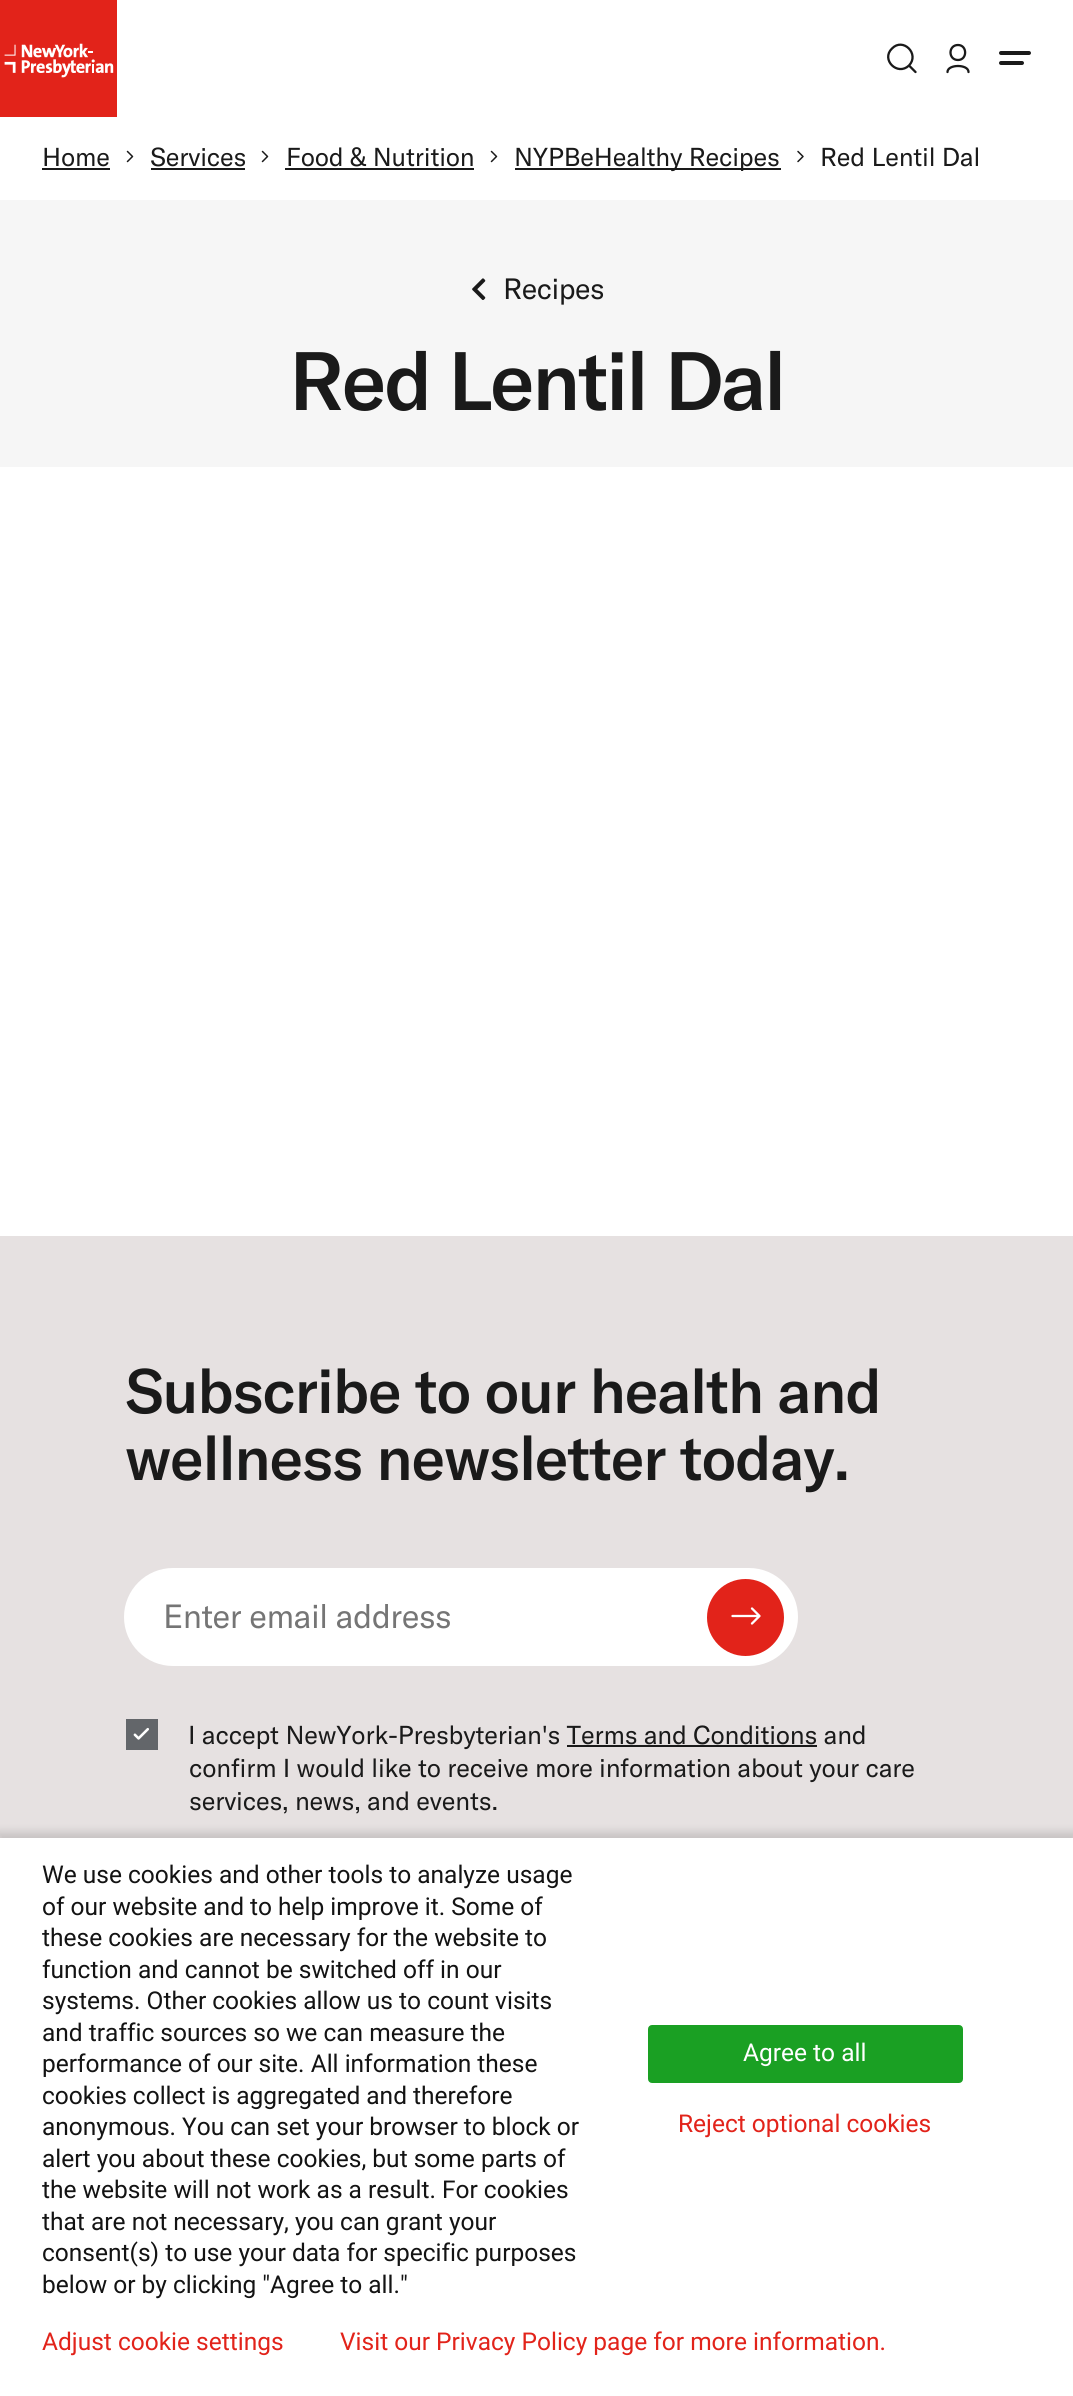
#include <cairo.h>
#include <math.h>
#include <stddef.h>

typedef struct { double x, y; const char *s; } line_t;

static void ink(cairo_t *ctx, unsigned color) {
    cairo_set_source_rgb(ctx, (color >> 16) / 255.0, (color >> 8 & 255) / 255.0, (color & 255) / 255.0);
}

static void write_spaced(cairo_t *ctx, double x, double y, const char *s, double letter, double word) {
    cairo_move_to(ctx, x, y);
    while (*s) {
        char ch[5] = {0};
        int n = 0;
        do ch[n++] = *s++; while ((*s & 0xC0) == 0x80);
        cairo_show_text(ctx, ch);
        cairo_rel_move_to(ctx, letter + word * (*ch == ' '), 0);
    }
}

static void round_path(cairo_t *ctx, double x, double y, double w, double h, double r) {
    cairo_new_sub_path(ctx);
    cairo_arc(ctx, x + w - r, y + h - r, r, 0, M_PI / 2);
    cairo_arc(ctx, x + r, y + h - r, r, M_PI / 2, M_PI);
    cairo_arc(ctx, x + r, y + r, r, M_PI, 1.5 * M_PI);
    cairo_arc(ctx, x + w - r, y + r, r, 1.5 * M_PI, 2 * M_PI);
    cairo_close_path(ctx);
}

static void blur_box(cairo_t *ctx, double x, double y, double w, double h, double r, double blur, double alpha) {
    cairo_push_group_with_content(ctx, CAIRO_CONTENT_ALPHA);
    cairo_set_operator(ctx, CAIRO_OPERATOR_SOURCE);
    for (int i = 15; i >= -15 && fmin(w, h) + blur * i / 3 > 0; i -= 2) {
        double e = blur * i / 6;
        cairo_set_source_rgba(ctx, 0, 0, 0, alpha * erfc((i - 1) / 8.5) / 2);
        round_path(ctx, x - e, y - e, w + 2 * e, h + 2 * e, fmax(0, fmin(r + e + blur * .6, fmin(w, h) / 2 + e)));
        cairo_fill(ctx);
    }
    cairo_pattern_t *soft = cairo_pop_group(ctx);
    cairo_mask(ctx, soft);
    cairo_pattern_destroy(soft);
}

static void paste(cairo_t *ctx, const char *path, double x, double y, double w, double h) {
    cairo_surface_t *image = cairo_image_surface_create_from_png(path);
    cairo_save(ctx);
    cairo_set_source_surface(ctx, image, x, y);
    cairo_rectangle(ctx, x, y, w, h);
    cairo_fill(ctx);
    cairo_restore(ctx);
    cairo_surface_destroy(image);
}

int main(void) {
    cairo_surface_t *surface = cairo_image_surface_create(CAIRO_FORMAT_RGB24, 1073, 2396);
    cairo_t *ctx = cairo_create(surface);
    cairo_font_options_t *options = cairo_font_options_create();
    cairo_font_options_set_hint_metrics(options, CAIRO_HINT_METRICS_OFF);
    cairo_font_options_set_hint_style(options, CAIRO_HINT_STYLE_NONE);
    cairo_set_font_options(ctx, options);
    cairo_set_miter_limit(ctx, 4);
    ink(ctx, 0xFFFFFF);
    cairo_paint(ctx);
    paste(ctx, "media/1.png", 0, 0, 117, 117);
    cairo_new_path(ctx);
    cairo_move_to(ctx, 915.5, 72);
    cairo_line_to(ctx, 909, 65.5);
    cairo_move_to(ctx, 909, 65.5);
    cairo_curve_to(ctx, 920, 54, 903, 37, 892, 48.5);
    cairo_curve_to(ctx, 880.5, 59.5, 897.5, 76.5, 909, 65.5);
    cairo_close_path(ctx);
    ink(ctx, 0x1A1A1A);
    cairo_set_line_width(ctx, 2.3);
    cairo_set_line_cap(ctx, CAIRO_LINE_CAP_ROUND);
    cairo_set_line_join(ctx, CAIRO_LINE_JOIN_ROUND);
    cairo_stroke(ctx);
    cairo_new_path(ctx);
    cairo_move_to(ctx, 947.5, 72);
    cairo_curve_to(ctx, 947.5, 64, 968.5, 64, 968.5, 72);
    cairo_move_to(ctx, 958, 60);
    cairo_curve_to(ctx, 967.5, 60, 967.5, 45, 958, 45);
    cairo_curve_to(ctx, 948, 45, 948, 60, 958, 60);
    cairo_close_path(ctx);
    cairo_stroke(ctx);
    round_path(ctx, 999, 51, 32, 4, 2);
    cairo_fill(ctx);
    round_path(ctx, 999, 61, 25, 4, 2);
    cairo_fill(ctx);
    cairo_select_font_face(ctx, "GT America", CAIRO_FONT_SLANT_NORMAL, CAIRO_FONT_WEIGHT_NORMAL);
    cairo_set_font_size(ctx, 25.6);
    write_spaced(ctx, 42, 166, "Home", -0.2, 0);
    cairo_rectangle(ctx, 42, 168, 68, 2);
    cairo_fill(ctx);
    cairo_new_path(ctx);
    cairo_move_to(ctx, 127.5, 161.5);
    cairo_line_to(ctx, 132.5, 156.5);
    cairo_line_to(ctx, 127.5, 151.5);
    cairo_set_line_width(ctx, 1.5);
    cairo_stroke(ctx);
    write_spaced(ctx, 150, 166, "Services", -0.2, 0);
    cairo_rectangle(ctx, 151, 168, 94, 2);
    cairo_fill(ctx);
    cairo_new_path(ctx);
    cairo_move_to(ctx, 262.5, 161.5);
    cairo_line_to(ctx, 267.5, 156.5);
    cairo_line_to(ctx, 262.5, 151.5);
    cairo_stroke(ctx);
    write_spaced(ctx, 286, 166, "Food & Nutrition", -0.2, 0);
    cairo_rectangle(ctx, 285, 168, 189, 2);
    cairo_fill(ctx);
    cairo_new_path(ctx);
    cairo_move_to(ctx, 491.5, 161.5);
    cairo_line_to(ctx, 496.5, 156.5);
    cairo_line_to(ctx, 491.5, 151.5);
    cairo_stroke(ctx);
    cairo_rectangle(ctx, 515, 168, 266, 2);
    cairo_fill(ctx);
    write_spaced(ctx, 514, 166, "NYPBeHealthy Recipes", -0.2, 0);
    cairo_new_path(ctx);
    cairo_move_to(ctx, 798, 161.5);
    cairo_line_to(ctx, 803, 156.5);
    cairo_line_to(ctx, 798, 151.5);
    cairo_stroke(ctx);
    write_spaced(ctx, 820, 166, "Red Lentil Dal", -0.2, 0);
    ink(ctx, 0xF6F6F6);
    cairo_rectangle(ctx, 0, 200, 1073, 267);
    cairo_fill(ctx);
    paste(ctx, "media/2.png", 472, 278, 14, 22);
    cairo_set_font_size(ctx, 29);
    ink(ctx, 0x1A1A1A);
    write_spaced(ctx, 503, 299, "Recipes", -0.5, 0);
    cairo_select_font_face(ctx, "GT America Medium", CAIRO_FONT_SLANT_NORMAL, CAIRO_FONT_WEIGHT_NORMAL);
    cairo_set_font_size(ctx, 81.5);
    write_spaced(ctx, 289, 410, "Red Lentil Dal", -2.5, 0);
    ink(ctx, 0xE6E1E1);
    cairo_rectangle(ctx, 0, 1236, 1073, 602);
    cairo_fill(ctx);
    cairo_set_font_size(ctx, 61.5);
    ink(ctx, 0x1A1A1A);
    write_spaced(ctx, 125, 1413, "Subscribe to our health and", -1.25, 0);
    write_spaced(ctx, 125, 1480, "wellness newsletter today.", -1.25, 0);
    ink(ctx, 0xFFFFFF);
    round_path(ctx, 124, 1568, 674, 98, 49);
    cairo_fill(ctx);
    cairo_select_font_face(ctx, "GT America", CAIRO_FONT_SLANT_NORMAL, CAIRO_FONT_WEIGHT_NORMAL);
    cairo_set_font_size(ctx, 33.1);
    ink(ctx, 0x757575);
    write_spaced(ctx, 163, 1628, "Enter email address", -0.5, 0);
    ink(ctx, 0xE2231A);
    cairo_new_path(ctx);
    cairo_arc(ctx, 745.5, 1617.5, 38.5, 0, 2 * M_PI);
    cairo_fill(ctx);
    cairo_new_path(ctx);
    cairo_move_to(ctx, 732.5, 1616);
    cairo_line_to(ctx, 759.5, 1616);
    cairo_move_to(ctx, 752, 1608.5);
    cairo_line_to(ctx, 759.5, 1616);
    cairo_line_to(ctx, 752, 1623.5);
    ink(ctx, 0xFFFFFF);
    cairo_set_line_width(ctx, 2.3);
    cairo_stroke(ctx);
    ink(ctx, 0x63666A);
    cairo_rectangle(ctx, 126, 1719, 32, 31);
    cairo_fill(ctx);
    paste(ctx, "media/3.png", 133, 1727, 16, 13);
    cairo_set_font_size(ctx, 25.6);
    ink(ctx, 0x1A1A1A);
    write_spaced(ctx, 188, 1744, "I accept NewYork-Presbyterian's Terms and Conditions and", -0.2, 0);
    cairo_rectangle(ctx, 567, 1745, 250, 2);
    cairo_fill(ctx);
    write_spaced(ctx, 189, 1777, "confirm I would like to receive more information about your care", -0.2, 0);
    write_spaced(ctx, 189, 1810, "services, news, and events.", -0.2, 0);
    ink(ctx, 0x000000);
    blur_box(ctx, -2, 1832, 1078, 564, 0, 4.5, 0.14);
    ink(ctx, 0xFFFFFF);
    cairo_rectangle(ctx, 0, 1838, 1073, 558);
    cairo_fill(ctx);
    cairo_select_font_face(ctx, "Roboto", CAIRO_FONT_SLANT_NORMAL, CAIRO_FONT_WEIGHT_NORMAL);
    cairo_set_font_size(ctx, 24.5);
    ink(ctx, 0x131313);
    {
        static const line_t items[] = {
            {42, 1883, "We use cookies and other tools to analyze usage"},
            {42, 1915, "of our website and to help improve it. Some of"},
            {42, 1946, "these cookies are necessary for the website to"},
            {42, 1978, "function and cannot be switched off in our"},
            {42, 2009, "systems. Other cookies allow us to count visits"},
            {42, 2041, "and traffic sources so we can measure the"},
            {42, 2072, "performance of our site. All information these"},
            {42, 2104, "cookies collect is aggregated and therefore"},
            {42, 2135, "anonymous. You can set your browser to block or"},
            {42, 2167, "alert you about these cookies, but some parts of"},
            {42, 2198, "the website will not work as a result. For cookies"},
            {42, 2230, "that are not necessary, you can grant your"},
            {42, 2261, "consent(s) to use your data for specific purposes"},
            {42, 2293, "below or by clicking \"Agree to all.\""},
        };
        for (size_t i = 0; i < sizeof items / sizeof *items; i++) {
            cairo_move_to(ctx, items[i].x, items[i].y);
            cairo_show_text(ctx, items[i].s);
        }
    }
    ink(ctx, 0x1AA023);
    round_path(ctx, 649, 2026, 313, 56, 3);
    cairo_fill_preserve(ctx);
    cairo_set_line_width(ctx, 2);
    cairo_set_line_cap(ctx, CAIRO_LINE_CAP_BUTT);
    cairo_set_line_join(ctx, CAIRO_LINE_JOIN_MITER);
    cairo_stroke(ctx);
    ink(ctx, 0xFFFFFF);
    cairo_move_to(ctx, 743, 2061);
    cairo_show_text(ctx, "Agree to all");
    ink(ctx, 0xE2231A);
    {
        static const line_t items[] = {
            {678, 2132, "Reject optional cookies"},
            {42, 2350, "Adjust cookie settings"},
            {340, 2350, "Visit our Privacy Policy page for more information."},
        };
        for (size_t i = 0; i < sizeof items / sizeof *items; i++) {
            cairo_move_to(ctx, items[i].x, items[i].y);
            cairo_show_text(ctx, items[i].s);
        }
    }
    cairo_surface_write_to_png(surface, "image.png");
    cairo_font_options_destroy(options);
    cairo_destroy(ctx);
    cairo_surface_destroy(surface);
    return 0;
}
